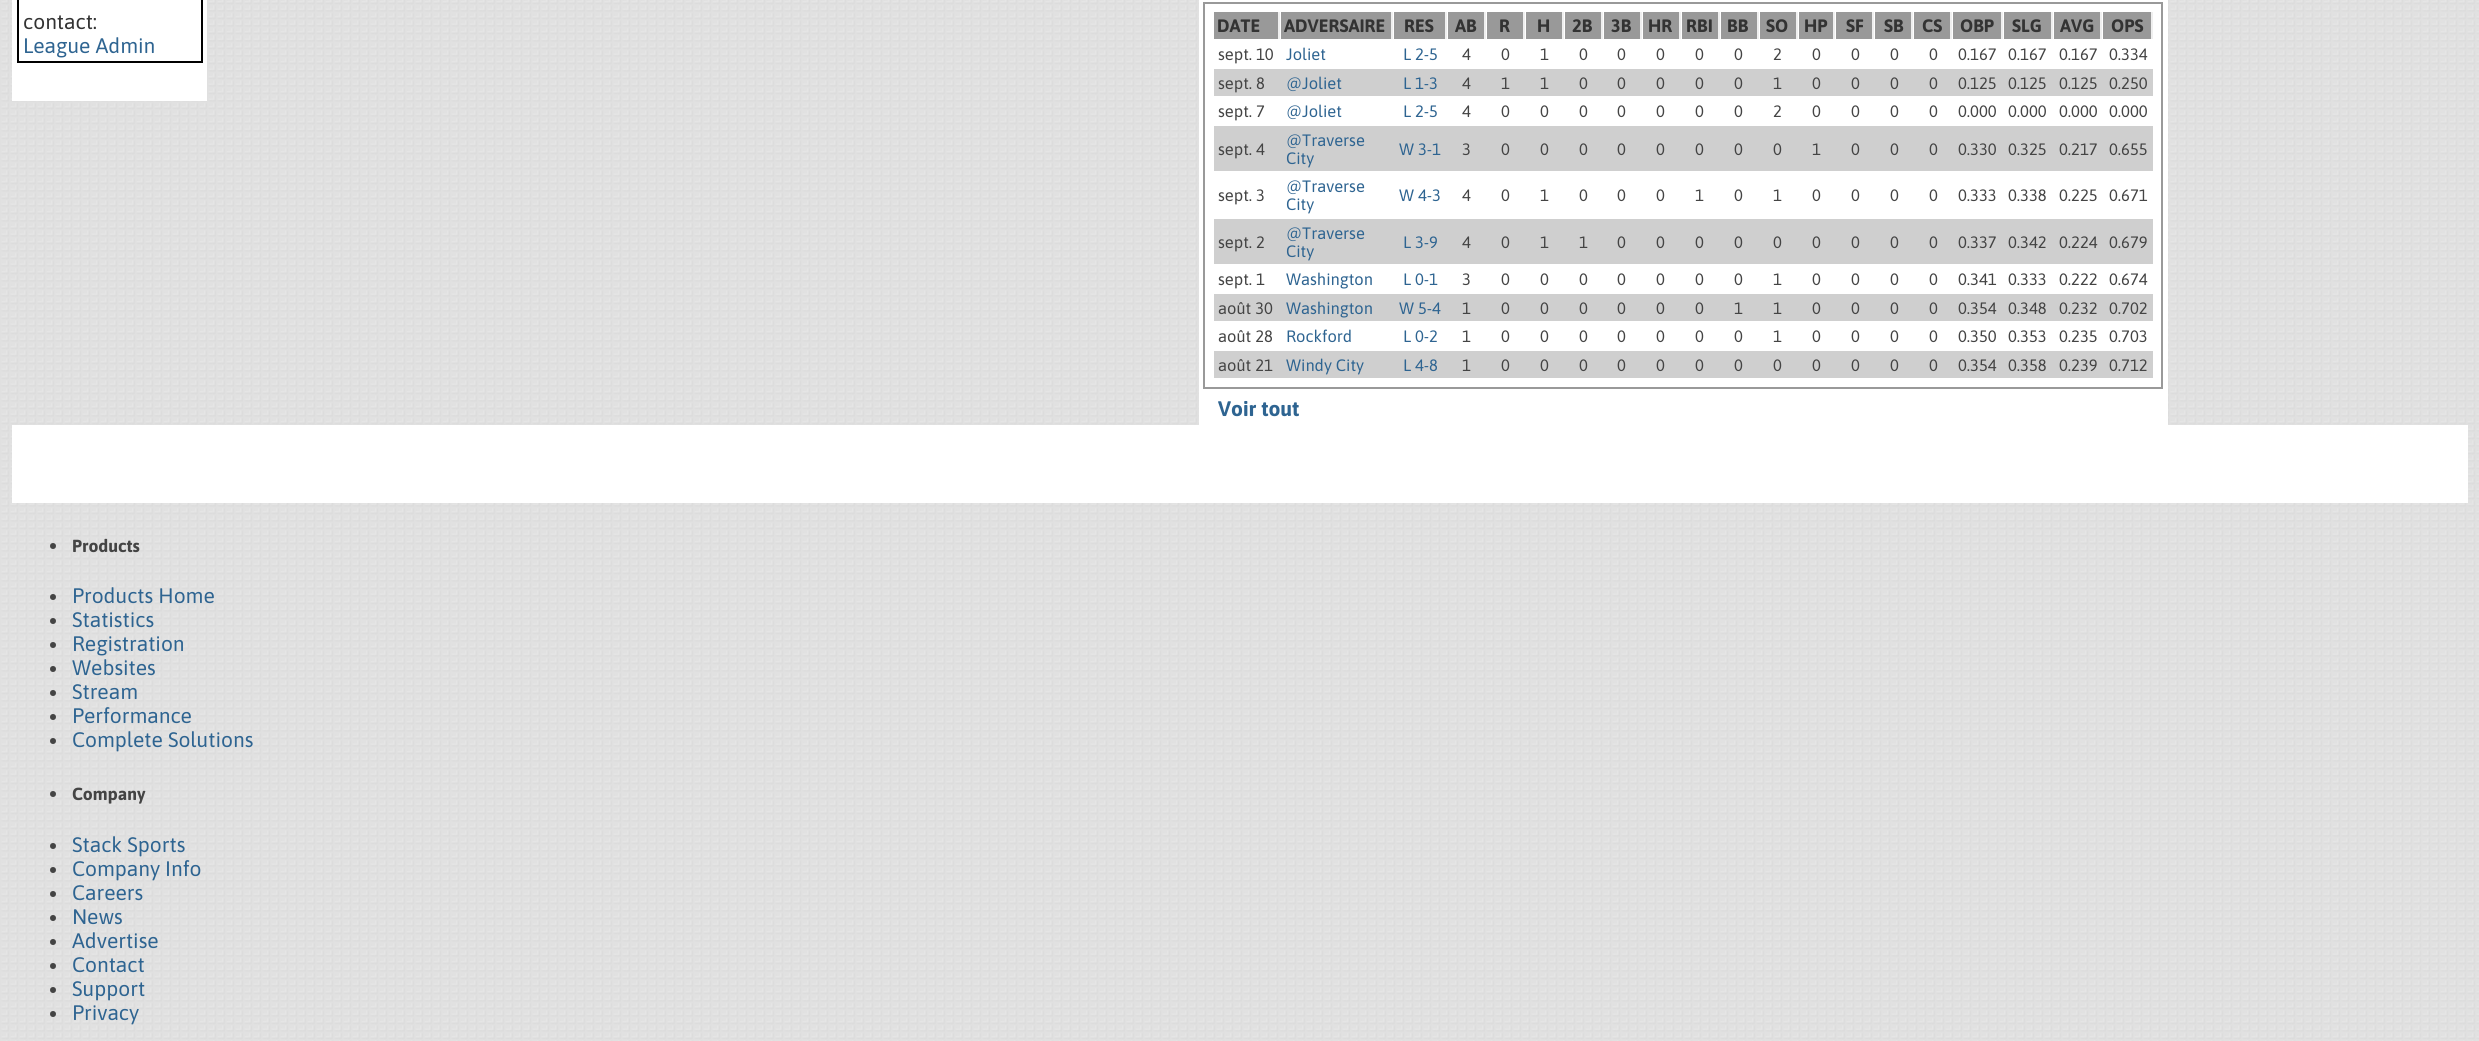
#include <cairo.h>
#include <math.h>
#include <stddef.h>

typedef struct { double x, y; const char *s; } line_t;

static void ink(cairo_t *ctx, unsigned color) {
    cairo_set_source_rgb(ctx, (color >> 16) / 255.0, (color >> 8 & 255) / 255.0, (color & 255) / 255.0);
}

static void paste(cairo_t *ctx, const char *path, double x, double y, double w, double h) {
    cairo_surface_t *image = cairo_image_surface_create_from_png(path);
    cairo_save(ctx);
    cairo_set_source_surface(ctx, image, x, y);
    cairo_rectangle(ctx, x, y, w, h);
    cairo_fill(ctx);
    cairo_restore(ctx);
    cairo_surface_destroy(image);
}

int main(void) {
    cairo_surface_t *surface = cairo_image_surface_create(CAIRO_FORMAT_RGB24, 2479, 1041);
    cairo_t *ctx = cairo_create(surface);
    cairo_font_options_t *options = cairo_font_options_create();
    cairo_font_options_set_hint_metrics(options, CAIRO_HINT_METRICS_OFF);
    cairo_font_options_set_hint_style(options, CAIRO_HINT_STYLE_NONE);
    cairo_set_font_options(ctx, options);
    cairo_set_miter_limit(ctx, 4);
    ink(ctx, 0xFFFFFF);
    cairo_paint(ctx);
    paste(ctx, "media/1.png", 0, 0, 2479, 1041);
    ink(ctx, 0xFFFFFF);
    cairo_rectangle(ctx, 12, 0, 195, 101);
    cairo_fill(ctx);
    cairo_rectangle(ctx, 18, -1, 184, 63);
    ink(ctx, 0x000000);
    cairo_stroke(ctx);
    cairo_select_font_face(ctx, "Asap", CAIRO_FONT_SLANT_NORMAL, CAIRO_FONT_WEIGHT_NORMAL);
    cairo_set_font_size(ctx, 21);
    ink(ctx, 0x333333);
    cairo_move_to(ctx, 23, 29);
    cairo_show_text(ctx, "contact:");
    ink(ctx, 0x2E6491);
    cairo_move_to(ctx, 23, 53);
    cairo_show_text(ctx, "League Admin");
    ink(ctx, 0xFFFFFF);
    cairo_rectangle(ctx, 1199, 0, 969, 425);
    cairo_fill(ctx);
    cairo_rectangle(ctx, 1204, 3, 958, 385);
    ink(ctx, 0x999999);
    cairo_stroke(ctx);
    cairo_rectangle(ctx, 1214, 12, 64, 27);
    cairo_fill(ctx);
    ink(ctx, 0xEFEFEF);
    cairo_rectangle(ctx, 1278, 12, 2, 27);
    cairo_fill(ctx);
    cairo_select_font_face(ctx, "Asap", CAIRO_FONT_SLANT_NORMAL, CAIRO_FONT_WEIGHT_BOLD);
    cairo_set_font_size(ctx, 18);
    ink(ctx, 0x333333);
    cairo_move_to(ctx, 1217, 32);
    cairo_show_text(ctx, "DATE");
    ink(ctx, 0x999999);
    cairo_rectangle(ctx, 1281, 12, 110, 27);
    cairo_fill(ctx);
    ink(ctx, 0xEFEFEF);
    cairo_rectangle(ctx, 1391, 12, 2, 27);
    cairo_fill(ctx);
    ink(ctx, 0x333333);
    cairo_move_to(ctx, 1284, 32);
    cairo_show_text(ctx, "ADVERSAIRE");
    ink(ctx, 0x999999);
    cairo_rectangle(ctx, 1394, 12, 51, 27);
    cairo_fill(ctx);
    ink(ctx, 0xEFEFEF);
    cairo_rectangle(ctx, 1445, 12, 2, 27);
    cairo_fill(ctx);
    ink(ctx, 0x333333);
    cairo_move_to(ctx, 1404, 32);
    cairo_show_text(ctx, "RES");
    ink(ctx, 0x999999);
    cairo_rectangle(ctx, 1448, 12, 36, 27);
    cairo_fill(ctx);
    ink(ctx, 0xEFEFEF);
    cairo_rectangle(ctx, 1484, 12, 2, 27);
    cairo_fill(ctx);
    ink(ctx, 0x333333);
    cairo_move_to(ctx, 1455, 32);
    cairo_show_text(ctx, "AB");
    ink(ctx, 0x999999);
    cairo_rectangle(ctx, 1487, 12, 36, 27);
    cairo_fill(ctx);
    ink(ctx, 0xEFEFEF);
    cairo_rectangle(ctx, 1523, 12, 2, 27);
    cairo_fill(ctx);
    ink(ctx, 0x333333);
    cairo_move_to(ctx, 1499, 32);
    cairo_show_text(ctx, "R");
    ink(ctx, 0x999999);
    cairo_rectangle(ctx, 1526, 12, 36, 27);
    cairo_fill(ctx);
    ink(ctx, 0xEFEFEF);
    cairo_rectangle(ctx, 1562, 12, 2, 27);
    cairo_fill(ctx);
    ink(ctx, 0x333333);
    cairo_move_to(ctx, 1537, 32);
    cairo_show_text(ctx, "H");
    ink(ctx, 0x999999);
    cairo_rectangle(ctx, 1565, 12, 36, 27);
    cairo_fill(ctx);
    ink(ctx, 0xEFEFEF);
    cairo_rectangle(ctx, 1601, 12, 2, 27);
    cairo_fill(ctx);
    ink(ctx, 0x333333);
    cairo_move_to(ctx, 1572, 32);
    cairo_show_text(ctx, "2B");
    ink(ctx, 0x999999);
    cairo_rectangle(ctx, 1604, 12, 36, 27);
    cairo_fill(ctx);
    ink(ctx, 0xEFEFEF);
    cairo_rectangle(ctx, 1640, 12, 2, 27);
    cairo_fill(ctx);
    ink(ctx, 0x333333);
    cairo_move_to(ctx, 1611, 32);
    cairo_show_text(ctx, "3B");
    ink(ctx, 0x999999);
    cairo_rectangle(ctx, 1643, 12, 36, 27);
    cairo_fill(ctx);
    ink(ctx, 0xEFEFEF);
    cairo_rectangle(ctx, 1679, 12, 2, 27);
    cairo_fill(ctx);
    ink(ctx, 0x333333);
    cairo_move_to(ctx, 1648, 32);
    cairo_show_text(ctx, "HR");
    ink(ctx, 0x999999);
    cairo_rectangle(ctx, 1682, 12, 36, 27);
    cairo_fill(ctx);
    ink(ctx, 0xEFEFEF);
    cairo_rectangle(ctx, 1718, 12, 2, 27);
    cairo_fill(ctx);
    ink(ctx, 0x333333);
    cairo_move_to(ctx, 1686, 32);
    cairo_show_text(ctx, "RBI");
    ink(ctx, 0x999999);
    cairo_rectangle(ctx, 1721, 12, 36, 27);
    cairo_fill(ctx);
    ink(ctx, 0xEFEFEF);
    cairo_rectangle(ctx, 1757, 12, 2, 27);
    cairo_fill(ctx);
    ink(ctx, 0x333333);
    cairo_move_to(ctx, 1727, 32);
    cairo_show_text(ctx, "BB");
    ink(ctx, 0x999999);
    cairo_rectangle(ctx, 1760, 12, 36, 27);
    cairo_fill(ctx);
    ink(ctx, 0xEFEFEF);
    cairo_rectangle(ctx, 1796, 12, 2, 27);
    cairo_fill(ctx);
    ink(ctx, 0x333333);
    cairo_move_to(ctx, 1766, 32);
    cairo_show_text(ctx, "SO");
    ink(ctx, 0x999999);
    cairo_rectangle(ctx, 1799, 12, 34, 27);
    cairo_fill(ctx);
    ink(ctx, 0xEFEFEF);
    cairo_rectangle(ctx, 1833, 12, 2, 27);
    cairo_fill(ctx);
    ink(ctx, 0x333333);
    cairo_move_to(ctx, 1804, 32);
    cairo_show_text(ctx, "HP");
    ink(ctx, 0x999999);
    cairo_rectangle(ctx, 1836, 12, 36, 27);
    cairo_fill(ctx);
    ink(ctx, 0xEFEFEF);
    cairo_rectangle(ctx, 1872, 12, 2, 27);
    cairo_fill(ctx);
    ink(ctx, 0x333333);
    cairo_move_to(ctx, 1846, 32);
    cairo_show_text(ctx, "SF");
    ink(ctx, 0x999999);
    cairo_rectangle(ctx, 1875, 12, 36, 27);
    cairo_fill(ctx);
    ink(ctx, 0xEFEFEF);
    cairo_rectangle(ctx, 1911, 12, 2, 27);
    cairo_fill(ctx);
    ink(ctx, 0x333333);
    cairo_move_to(ctx, 1884, 32);
    cairo_show_text(ctx, "SB");
    ink(ctx, 0x999999);
    cairo_rectangle(ctx, 1914, 12, 36, 27);
    cairo_fill(ctx);
    ink(ctx, 0xEFEFEF);
    cairo_rectangle(ctx, 1950, 12, 2, 27);
    cairo_fill(ctx);
    ink(ctx, 0x333333);
    cairo_move_to(ctx, 1922, 32);
    cairo_show_text(ctx, "CS");
    ink(ctx, 0x999999);
    cairo_rectangle(ctx, 1953, 12, 48, 27);
    cairo_fill(ctx);
    ink(ctx, 0xEFEFEF);
    cairo_rectangle(ctx, 2001, 12, 2, 27);
    cairo_fill(ctx);
    ink(ctx, 0x333333);
    cairo_move_to(ctx, 1960, 32);
    cairo_show_text(ctx, "OBP");
    ink(ctx, 0x999999);
    cairo_rectangle(ctx, 2004, 12, 47, 27);
    cairo_fill(ctx);
    ink(ctx, 0xEFEFEF);
    cairo_rectangle(ctx, 2051, 12, 2, 27);
    cairo_fill(ctx);
    ink(ctx, 0x333333);
    cairo_move_to(ctx, 2012, 32);
    cairo_show_text(ctx, "SLG");
    ink(ctx, 0x999999);
    cairo_rectangle(ctx, 2054, 12, 46, 27);
    cairo_fill(ctx);
    ink(ctx, 0xEFEFEF);
    cairo_rectangle(ctx, 2100, 12, 2, 27);
    cairo_fill(ctx);
    ink(ctx, 0x333333);
    cairo_move_to(ctx, 2060, 32);
    cairo_show_text(ctx, "AVG");
    ink(ctx, 0x999999);
    cairo_rectangle(ctx, 2103, 12, 48, 27);
    cairo_fill(ctx);
    ink(ctx, 0xEFEFEF);
    cairo_rectangle(ctx, 2151, 12, 2, 27);
    cairo_fill(ctx);
    ink(ctx, 0x333333);
    cairo_move_to(ctx, 2111, 32);
    cairo_show_text(ctx, "OPS");
    cairo_select_font_face(ctx, "Asap", CAIRO_FONT_SLANT_NORMAL, CAIRO_FONT_WEIGHT_NORMAL);
    cairo_set_font_size(ctx, 16.5);
    ink(ctx, 0x444444);
    cairo_move_to(ctx, 1218, 60);
    cairo_show_text(ctx, "sept. 10");
    ink(ctx, 0x2E6491);
    cairo_move_to(ctx, 1286, 60);
    cairo_show_text(ctx, "Joliet");
    cairo_move_to(ctx, 1403, 60);
    cairo_show_text(ctx, "L 2-5");
    ink(ctx, 0x444444);
    {
        static const line_t items[] = {
            {1462, 60, "4"},
            {1501, 60, "0"},
            {1540, 60, "1"},
            {1579, 60, "0"},
            {1617, 60, "0"},
            {1656, 60, "0"},
            {1695, 60, "0"},
            {1734, 60, "0"},
            {1773, 60, "2"},
            {1812, 60, "0"},
            {1851, 60, "0"},
            {1890, 60, "0"},
            {1929, 60, "0"},
            {1958, 60, "0.167"},
            {2008, 60, "0.167"},
            {2059, 60, "0.167"},
            {2109, 60, "0.334"},
        };
        for (size_t i = 0; i < sizeof items / sizeof *items; i++) {
            cairo_move_to(ctx, items[i].x, items[i].y);
            cairo_show_text(ctx, items[i].s);
        }
    }
    ink(ctx, 0xCFCFCF);
    cairo_rectangle(ctx, 1214, 69, 939, 27);
    cairo_fill(ctx);
    ink(ctx, 0x444444);
    cairo_move_to(ctx, 1218, 89);
    cairo_show_text(ctx, "sept. 8");
    ink(ctx, 0x2E6491);
    cairo_move_to(ctx, 1286, 89);
    cairo_show_text(ctx, "@Joliet");
    cairo_move_to(ctx, 1403, 89);
    cairo_show_text(ctx, "L 1-3");
    ink(ctx, 0x444444);
    {
        static const line_t items[] = {
            {1462, 89, "4"},
            {1501, 89, "1"},
            {1540, 89, "1"},
            {1579, 89, "0"},
            {1617, 89, "0"},
            {1656, 89, "0"},
            {1695, 89, "0"},
            {1734, 89, "0"},
            {1773, 89, "1"},
            {1812, 89, "0"},
            {1851, 89, "0"},
            {1890, 89, "0"},
            {1929, 89, "0"},
            {1958, 89, "0.125"},
            {2008, 89, "0.125"},
            {2059, 89, "0.125"},
            {2109, 89, "0.250"},
            {1218, 117, "sept. 7"},
        };
        for (size_t i = 0; i < sizeof items / sizeof *items; i++) {
            cairo_move_to(ctx, items[i].x, items[i].y);
            cairo_show_text(ctx, items[i].s);
        }
    }
    ink(ctx, 0x2E6491);
    cairo_move_to(ctx, 1286, 117);
    cairo_show_text(ctx, "@Joliet");
    cairo_move_to(ctx, 1403, 117);
    cairo_show_text(ctx, "L 2-5");
    ink(ctx, 0x444444);
    {
        static const line_t items[] = {
            {1462, 117, "4"},
            {1501, 117, "0"},
            {1540, 117, "0"},
            {1579, 117, "0"},
            {1617, 117, "0"},
            {1656, 117, "0"},
            {1695, 117, "0"},
            {1734, 117, "0"},
            {1773, 117, "2"},
            {1812, 117, "0"},
            {1851, 117, "0"},
            {1890, 117, "0"},
            {1929, 117, "0"},
            {1958, 117, "0.000"},
            {2008, 117, "0.000"},
            {2059, 117, "0.000"},
            {2109, 117, "0.000"},
        };
        for (size_t i = 0; i < sizeof items / sizeof *items; i++) {
            cairo_move_to(ctx, items[i].x, items[i].y);
            cairo_show_text(ctx, items[i].s);
        }
    }
    ink(ctx, 0xCFCFCF);
    cairo_rectangle(ctx, 1214, 126, 939, 45);
    cairo_fill(ctx);
    ink(ctx, 0x444444);
    cairo_move_to(ctx, 1218, 155);
    cairo_show_text(ctx, "sept. 4");
    ink(ctx, 0x2E6491);
    {
        static const line_t items[] = {
            {1286, 146, "@Traverse"},
            {1286, 164, "City"},
            {1399, 155, "W 3-1"},
        };
        for (size_t i = 0; i < sizeof items / sizeof *items; i++) {
            cairo_move_to(ctx, items[i].x, items[i].y);
            cairo_show_text(ctx, items[i].s);
        }
    }
    ink(ctx, 0x444444);
    {
        static const line_t items[] = {
            {1462, 155, "3"},
            {1501, 155, "0"},
            {1540, 155, "0"},
            {1579, 155, "0"},
            {1617, 155, "0"},
            {1656, 155, "0"},
            {1695, 155, "0"},
            {1734, 155, "0"},
            {1773, 155, "0"},
            {1812, 155, "1"},
            {1851, 155, "0"},
            {1890, 155, "0"},
            {1929, 155, "0"},
            {1958, 155, "0.330"},
            {2008, 155, "0.325"},
            {2059, 155, "0.217"},
            {2109, 155, "0.655"},
            {1218, 201, "sept. 3"},
        };
        for (size_t i = 0; i < sizeof items / sizeof *items; i++) {
            cairo_move_to(ctx, items[i].x, items[i].y);
            cairo_show_text(ctx, items[i].s);
        }
    }
    ink(ctx, 0x2E6491);
    {
        static const line_t items[] = {
            {1286, 192, "@Traverse"},
            {1286, 210, "City"},
            {1399, 201, "W 4-3"},
        };
        for (size_t i = 0; i < sizeof items / sizeof *items; i++) {
            cairo_move_to(ctx, items[i].x, items[i].y);
            cairo_show_text(ctx, items[i].s);
        }
    }
    ink(ctx, 0x444444);
    {
        static const line_t items[] = {
            {1462, 201, "4"},
            {1501, 201, "0"},
            {1540, 201, "1"},
            {1579, 201, "0"},
            {1617, 201, "0"},
            {1656, 201, "0"},
            {1695, 201, "1"},
            {1734, 201, "0"},
            {1773, 201, "1"},
            {1812, 201, "0"},
            {1851, 201, "0"},
            {1890, 201, "0"},
            {1929, 201, "0"},
            {1958, 201, "0.333"},
            {2008, 201, "0.338"},
            {2059, 201, "0.225"},
            {2109, 201, "0.671"},
        };
        for (size_t i = 0; i < sizeof items / sizeof *items; i++) {
            cairo_move_to(ctx, items[i].x, items[i].y);
            cairo_show_text(ctx, items[i].s);
        }
    }
    ink(ctx, 0xCFCFCF);
    cairo_rectangle(ctx, 1214, 219, 939, 45);
    cairo_fill(ctx);
    ink(ctx, 0x444444);
    cairo_move_to(ctx, 1218, 248);
    cairo_show_text(ctx, "sept. 2");
    ink(ctx, 0x2E6491);
    {
        static const line_t items[] = {
            {1286, 239, "@Traverse"},
            {1286, 257, "City"},
            {1403, 248, "L 3-9"},
        };
        for (size_t i = 0; i < sizeof items / sizeof *items; i++) {
            cairo_move_to(ctx, items[i].x, items[i].y);
            cairo_show_text(ctx, items[i].s);
        }
    }
    ink(ctx, 0x444444);
    {
        static const line_t items[] = {
            {1462, 248, "4"},
            {1501, 248, "0"},
            {1540, 248, "1"},
            {1579, 248, "1"},
            {1617, 248, "0"},
            {1656, 248, "0"},
            {1695, 248, "0"},
            {1734, 248, "0"},
            {1773, 248, "0"},
            {1812, 248, "0"},
            {1851, 248, "0"},
            {1890, 248, "0"},
            {1929, 248, "0"},
            {1958, 248, "0.337"},
            {2008, 248, "0.342"},
            {2059, 248, "0.224"},
            {2109, 248, "0.679"},
            {1218, 285, "sept. 1"},
        };
        for (size_t i = 0; i < sizeof items / sizeof *items; i++) {
            cairo_move_to(ctx, items[i].x, items[i].y);
            cairo_show_text(ctx, items[i].s);
        }
    }
    ink(ctx, 0x2E6491);
    cairo_move_to(ctx, 1286, 285);
    cairo_show_text(ctx, "Washington");
    cairo_move_to(ctx, 1403, 285);
    cairo_show_text(ctx, "L 0-1");
    ink(ctx, 0x444444);
    {
        static const line_t items[] = {
            {1462, 285, "3"},
            {1501, 285, "0"},
            {1540, 285, "0"},
            {1579, 285, "0"},
            {1617, 285, "0"},
            {1656, 285, "0"},
            {1695, 285, "0"},
            {1734, 285, "0"},
            {1773, 285, "1"},
            {1812, 285, "0"},
            {1851, 285, "0"},
            {1890, 285, "0"},
            {1929, 285, "0"},
            {1958, 285, "0.341"},
            {2008, 285, "0.333"},
            {2059, 285, "0.222"},
            {2109, 285, "0.674"},
        };
        for (size_t i = 0; i < sizeof items / sizeof *items; i++) {
            cairo_move_to(ctx, items[i].x, items[i].y);
            cairo_show_text(ctx, items[i].s);
        }
    }
    ink(ctx, 0xCFCFCF);
    cairo_rectangle(ctx, 1214, 294, 939, 27);
    cairo_fill(ctx);
    ink(ctx, 0x444444);
    cairo_move_to(ctx, 1218, 314);
    cairo_show_text(ctx, "août 30");
    ink(ctx, 0x2E6491);
    cairo_move_to(ctx, 1286, 314);
    cairo_show_text(ctx, "Washington");
    cairo_move_to(ctx, 1399, 314);
    cairo_show_text(ctx, "W 5-4");
    ink(ctx, 0x444444);
    {
        static const line_t items[] = {
            {1462, 314, "1"},
            {1501, 314, "0"},
            {1540, 314, "0"},
            {1579, 314, "0"},
            {1617, 314, "0"},
            {1656, 314, "0"},
            {1695, 314, "0"},
            {1734, 314, "1"},
            {1773, 314, "1"},
            {1812, 314, "0"},
            {1851, 314, "0"},
            {1890, 314, "0"},
            {1929, 314, "0"},
            {1958, 314, "0.354"},
            {2008, 314, "0.348"},
            {2059, 314, "0.232"},
            {2109, 314, "0.702"},
            {1218, 342, "août 28"},
        };
        for (size_t i = 0; i < sizeof items / sizeof *items; i++) {
            cairo_move_to(ctx, items[i].x, items[i].y);
            cairo_show_text(ctx, items[i].s);
        }
    }
    ink(ctx, 0x2E6491);
    cairo_move_to(ctx, 1286, 342);
    cairo_show_text(ctx, "Rockford");
    cairo_move_to(ctx, 1403, 342);
    cairo_show_text(ctx, "L 0-2");
    ink(ctx, 0x444444);
    {
        static const line_t items[] = {
            {1462, 342, "1"},
            {1501, 342, "0"},
            {1540, 342, "0"},
            {1579, 342, "0"},
            {1617, 342, "0"},
            {1656, 342, "0"},
            {1695, 342, "0"},
            {1734, 342, "0"},
            {1773, 342, "1"},
            {1812, 342, "0"},
            {1851, 342, "0"},
            {1890, 342, "0"},
            {1929, 342, "0"},
            {1958, 342, "0.350"},
            {2008, 342, "0.353"},
            {2059, 342, "0.235"},
            {2109, 342, "0.703"},
        };
        for (size_t i = 0; i < sizeof items / sizeof *items; i++) {
            cairo_move_to(ctx, items[i].x, items[i].y);
            cairo_show_text(ctx, items[i].s);
        }
    }
    ink(ctx, 0xCFCFCF);
    cairo_rectangle(ctx, 1214, 351, 939, 27);
    cairo_fill(ctx);
    ink(ctx, 0x444444);
    cairo_move_to(ctx, 1218, 371);
    cairo_show_text(ctx, "août 21");
    ink(ctx, 0x2E6491);
    cairo_move_to(ctx, 1286, 371);
    cairo_show_text(ctx, "Windy City");
    cairo_move_to(ctx, 1403, 371);
    cairo_show_text(ctx, "L 4-8");
    ink(ctx, 0x444444);
    {
        static const line_t items[] = {
            {1462, 371, "1"},
            {1501, 371, "0"},
            {1540, 371, "0"},
            {1579, 371, "0"},
            {1617, 371, "0"},
            {1656, 371, "0"},
            {1695, 371, "0"},
            {1734, 371, "0"},
            {1773, 371, "0"},
            {1812, 371, "0"},
            {1851, 371, "0"},
            {1890, 371, "0"},
            {1929, 371, "0"},
            {1958, 371, "0.354"},
            {2008, 371, "0.358"},
            {2059, 371, "0.239"},
            {2109, 371, "0.712"},
        };
        for (size_t i = 0; i < sizeof items / sizeof *items; i++) {
            cairo_move_to(ctx, items[i].x, items[i].y);
            cairo_show_text(ctx, items[i].s);
        }
    }
    cairo_select_font_face(ctx, "Asap", CAIRO_FONT_SLANT_NORMAL, CAIRO_FONT_WEIGHT_BOLD);
    cairo_set_font_size(ctx, 21);
    ink(ctx, 0x2E6491);
    cairo_move_to(ctx, 1218, 416);
    cairo_show_text(ctx, "Voir tout");
    ink(ctx, 0xFFFFFF);
    cairo_rectangle(ctx, 12, 425, 2456, 78);
    cairo_fill(ctx);
    ink(ctx, 0x444444);
    cairo_arc(ctx, 53, 546, 3, 0, 2 * M_PI);
    cairo_fill(ctx);
    cairo_set_font_size(ctx, 17.5);
    cairo_move_to(ctx, 72, 552);
    cairo_show_text(ctx, "Products");
    cairo_new_path(ctx);
    cairo_arc(ctx, 53, 597, 3, 0, 2 * M_PI);
    cairo_fill(ctx);
    cairo_select_font_face(ctx, "Asap", CAIRO_FONT_SLANT_NORMAL, CAIRO_FONT_WEIGHT_NORMAL);
    cairo_set_font_size(ctx, 21);
    ink(ctx, 0x2E6491);
    cairo_move_to(ctx, 72, 603);
    cairo_show_text(ctx, "Products Home");
    ink(ctx, 0x444444);
    cairo_new_path(ctx);
    cairo_arc(ctx, 53, 621, 3, 0, 2 * M_PI);
    cairo_fill(ctx);
    ink(ctx, 0x2E6491);
    cairo_move_to(ctx, 72, 627);
    cairo_show_text(ctx, "Statistics");
    ink(ctx, 0x444444);
    cairo_new_path(ctx);
    cairo_arc(ctx, 53, 645, 3, 0, 2 * M_PI);
    cairo_fill(ctx);
    ink(ctx, 0x2E6491);
    cairo_move_to(ctx, 72, 651);
    cairo_show_text(ctx, "Registration");
    ink(ctx, 0x444444);
    cairo_new_path(ctx);
    cairo_arc(ctx, 53, 669, 3, 0, 2 * M_PI);
    cairo_fill(ctx);
    ink(ctx, 0x2E6491);
    cairo_move_to(ctx, 72, 675);
    cairo_show_text(ctx, "Websites");
    ink(ctx, 0x444444);
    cairo_new_path(ctx);
    cairo_arc(ctx, 53, 693, 3, 0, 2 * M_PI);
    cairo_fill(ctx);
    ink(ctx, 0x2E6491);
    cairo_move_to(ctx, 72, 699);
    cairo_show_text(ctx, "Stream");
    ink(ctx, 0x444444);
    cairo_new_path(ctx);
    cairo_arc(ctx, 53, 717, 3, 0, 2 * M_PI);
    cairo_fill(ctx);
    ink(ctx, 0x2E6491);
    cairo_move_to(ctx, 72, 723);
    cairo_show_text(ctx, "Performance");
    ink(ctx, 0x444444);
    cairo_new_path(ctx);
    cairo_arc(ctx, 53, 741, 3, 0, 2 * M_PI);
    cairo_fill(ctx);
    ink(ctx, 0x2E6491);
    cairo_move_to(ctx, 72, 747);
    cairo_show_text(ctx, "Complete Solutions");
    ink(ctx, 0x444444);
    cairo_new_path(ctx);
    cairo_arc(ctx, 53, 794, 3, 0, 2 * M_PI);
    cairo_fill(ctx);
    cairo_select_font_face(ctx, "Asap", CAIRO_FONT_SLANT_NORMAL, CAIRO_FONT_WEIGHT_BOLD);
    cairo_set_font_size(ctx, 17.5);
    cairo_move_to(ctx, 72, 800);
    cairo_show_text(ctx, "Company");
    cairo_new_path(ctx);
    cairo_arc(ctx, 53, 846, 3, 0, 2 * M_PI);
    cairo_fill(ctx);
    cairo_select_font_face(ctx, "Asap", CAIRO_FONT_SLANT_NORMAL, CAIRO_FONT_WEIGHT_NORMAL);
    cairo_set_font_size(ctx, 21);
    ink(ctx, 0x2E6491);
    cairo_move_to(ctx, 72, 852);
    cairo_show_text(ctx, "Stack Sports");
    ink(ctx, 0x444444);
    cairo_new_path(ctx);
    cairo_arc(ctx, 53, 870, 3, 0, 2 * M_PI);
    cairo_fill(ctx);
    ink(ctx, 0x2E6491);
    cairo_move_to(ctx, 72, 876);
    cairo_show_text(ctx, "Company Info");
    ink(ctx, 0x444444);
    cairo_new_path(ctx);
    cairo_arc(ctx, 53, 894, 3, 0, 2 * M_PI);
    cairo_fill(ctx);
    ink(ctx, 0x2E6491);
    cairo_move_to(ctx, 72, 900);
    cairo_show_text(ctx, "Careers");
    ink(ctx, 0x444444);
    cairo_new_path(ctx);
    cairo_arc(ctx, 53, 918, 3, 0, 2 * M_PI);
    cairo_fill(ctx);
    ink(ctx, 0x2E6491);
    cairo_move_to(ctx, 72, 924);
    cairo_show_text(ctx, "News");
    ink(ctx, 0x444444);
    cairo_new_path(ctx);
    cairo_arc(ctx, 53, 942, 3, 0, 2 * M_PI);
    cairo_fill(ctx);
    ink(ctx, 0x2E6491);
    cairo_move_to(ctx, 72, 948);
    cairo_show_text(ctx, "Advertise");
    ink(ctx, 0x444444);
    cairo_new_path(ctx);
    cairo_arc(ctx, 53, 966, 3, 0, 2 * M_PI);
    cairo_fill(ctx);
    ink(ctx, 0x2E6491);
    cairo_move_to(ctx, 72, 972);
    cairo_show_text(ctx, "Contact");
    ink(ctx, 0x444444);
    cairo_new_path(ctx);
    cairo_arc(ctx, 53, 990, 3, 0, 2 * M_PI);
    cairo_fill(ctx);
    ink(ctx, 0x2E6491);
    cairo_move_to(ctx, 72, 996);
    cairo_show_text(ctx, "Support");
    ink(ctx, 0x444444);
    cairo_new_path(ctx);
    cairo_arc(ctx, 53, 1014, 3, 0, 2 * M_PI);
    cairo_fill(ctx);
    ink(ctx, 0x2E6491);
    cairo_move_to(ctx, 72, 1020);
    cairo_show_text(ctx, "Privacy");
    cairo_surface_write_to_png(surface, "image.png");
    cairo_font_options_destroy(options);
    cairo_destroy(ctx);
    cairo_surface_destroy(surface);
    return 0;
}
